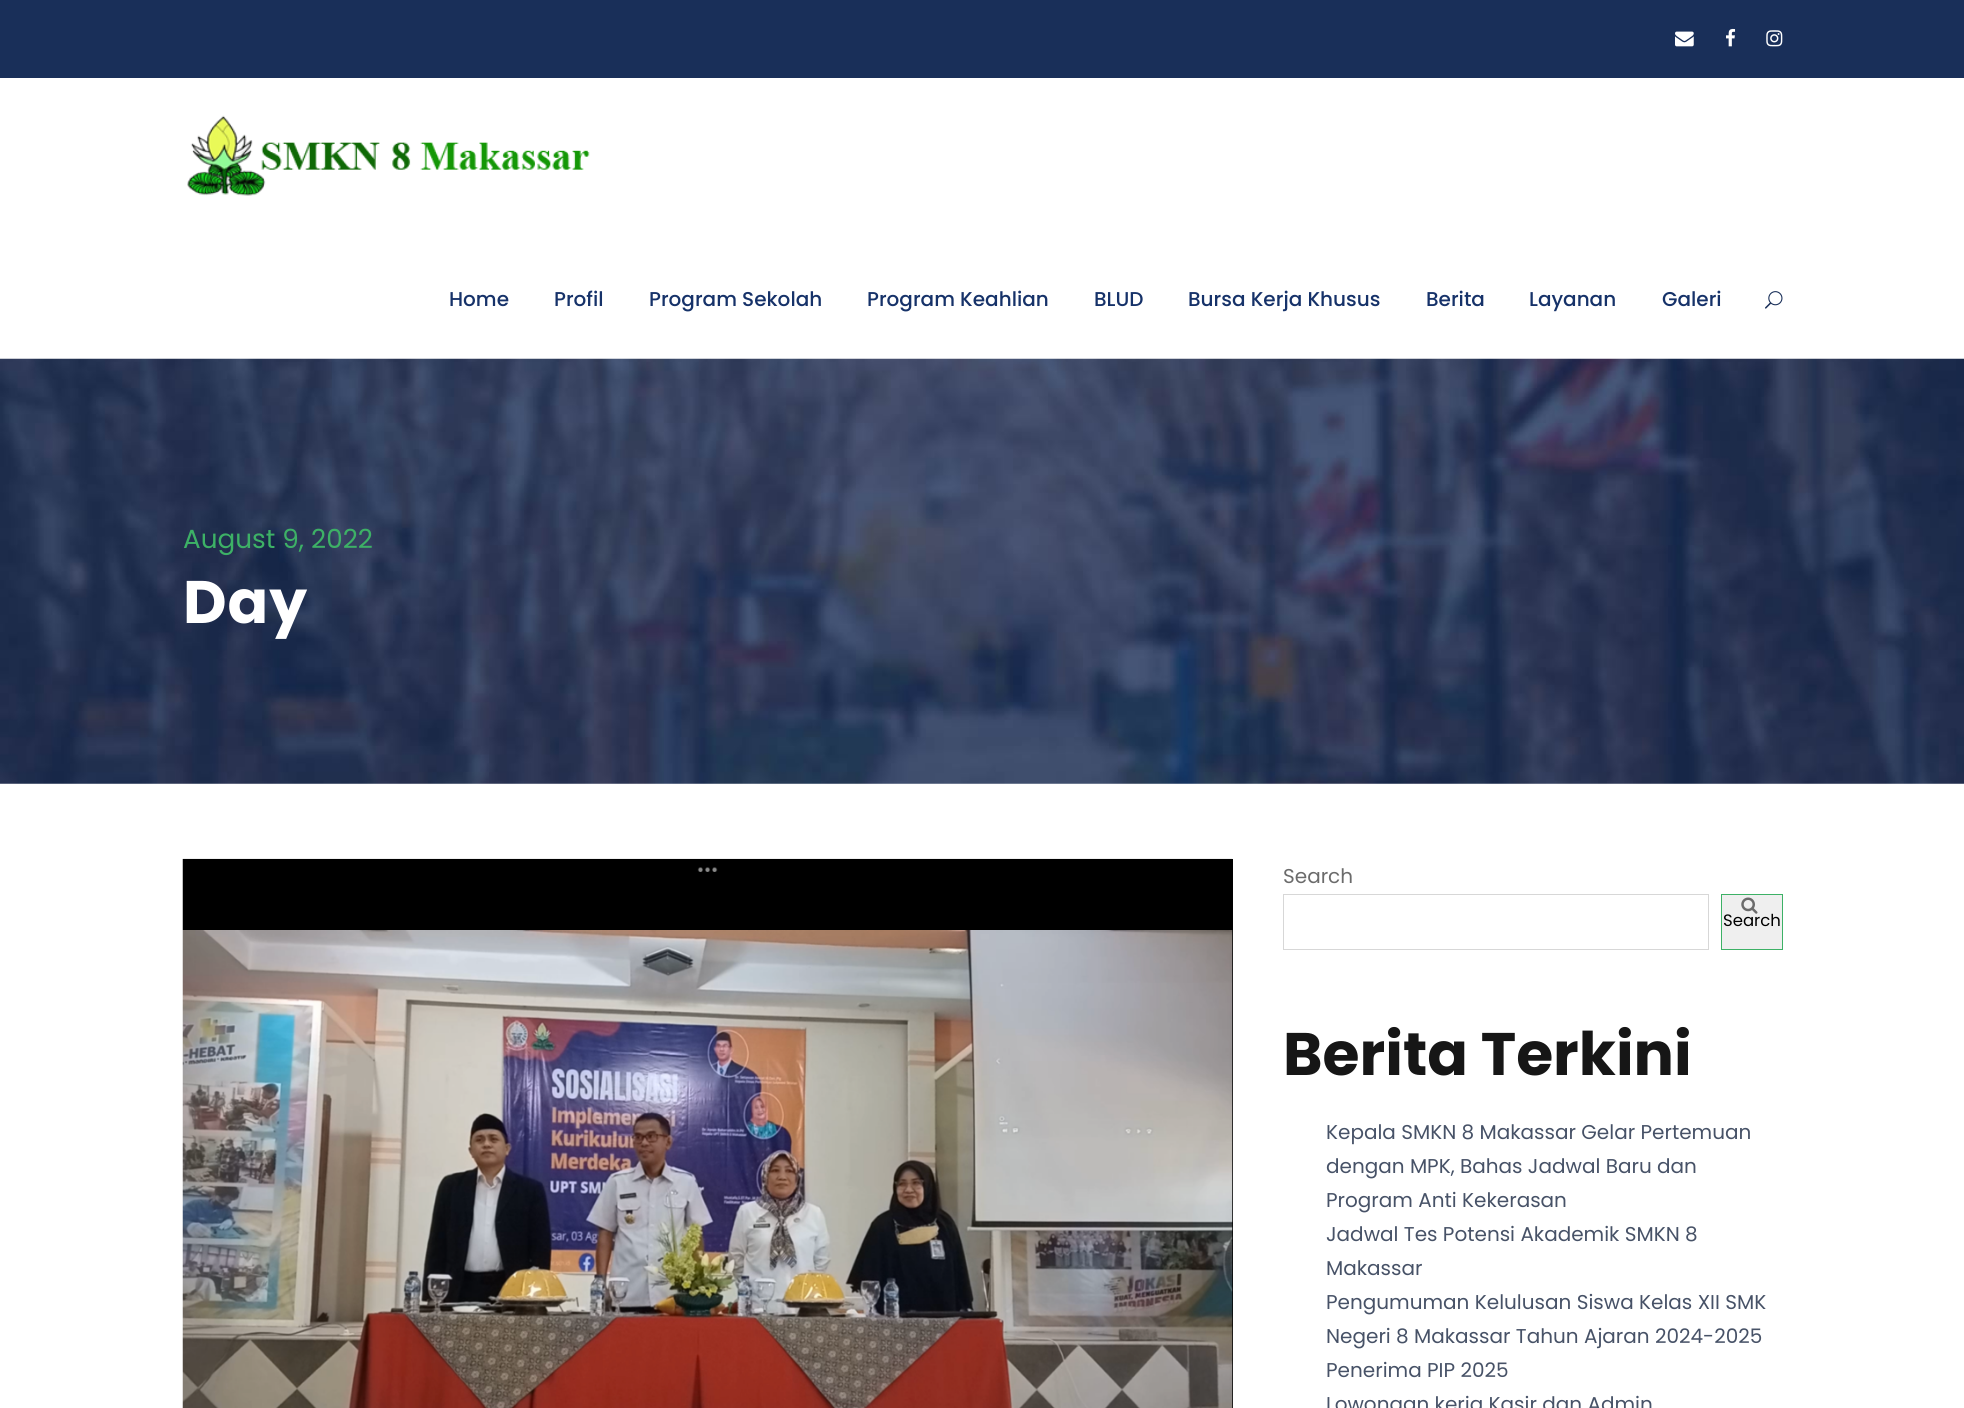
#include <cairo.h>
#include <math.h>
#include <stddef.h>

typedef struct { double x, y; const char *s; } line_t;

static void ink(cairo_t *ctx, unsigned color) {
    cairo_set_source_rgb(ctx, (color >> 16) / 255.0, (color >> 8 & 255) / 255.0, (color & 255) / 255.0);
}

static void write_spaced(cairo_t *ctx, double x, double y, const char *s, double letter, double word) {
    cairo_move_to(ctx, x, y);
    while (*s) {
        char ch[5] = {0};
        int n = 0;
        do ch[n++] = *s++; while ((*s & 0xC0) == 0x80);
        cairo_show_text(ctx, ch);
        cairo_rel_move_to(ctx, letter + word * (*ch == ' '), 0);
    }
}

static void paste(cairo_t *ctx, const char *path, double x, double y, double w, double h) {
    cairo_surface_t *image = cairo_image_surface_create_from_png(path);
    cairo_save(ctx);
    cairo_set_source_surface(ctx, image, x, y);
    cairo_rectangle(ctx, x, y, w, h);
    cairo_fill(ctx);
    cairo_restore(ctx);
    cairo_surface_destroy(image);
}

int main(void) {
    cairo_surface_t *surface = cairo_image_surface_create(CAIRO_FORMAT_RGB24, 1964, 1408);
    cairo_t *ctx = cairo_create(surface);
    cairo_font_options_t *options = cairo_font_options_create();
    cairo_font_options_set_hint_metrics(options, CAIRO_HINT_METRICS_OFF);
    cairo_font_options_set_hint_style(options, CAIRO_HINT_STYLE_NONE);
    cairo_set_font_options(ctx, options);
    cairo_set_miter_limit(ctx, 4);
    ink(ctx, 0xFFFFFF);
    cairo_paint(ctx);
    ink(ctx, 0x192F59);
    cairo_rectangle(ctx, 0, 0, 1964, 78);
    cairo_fill(ctx);
    paste(ctx, "media/1.png", 1675, 31, 19, 16);
    paste(ctx, "media/2.png", 1726, 28, 10, 19);
    paste(ctx, "media/3.png", 1766, 30, 17, 17);
    paste(ctx, "media/4.png", 187, 115, 403, 81);
    cairo_select_font_face(ctx, "Poppins Medium", CAIRO_FONT_SLANT_NORMAL, CAIRO_FONT_WEIGHT_NORMAL);
    cairo_set_font_size(ctx, 20);
    ink(ctx, 0x163269);
    {
        static const line_t items[] = {
            {449, 306, "Home"},
            {554, 306, "Profil"},
            {649, 306, "Program Sekolah"},
            {867, 306, "Program Keahlian"},
            {1094, 306, "BLUD"},
            {1188, 306, "Bursa Kerja Khusus"},
            {1426, 306, "Berita"},
            {1529, 306, "Layanan"},
            {1662, 306, "Galeri"},
        };
        for (size_t i = 0; i < sizeof items / sizeof *items; i++) {
            cairo_move_to(ctx, items[i].x, items[i].y);
            cairo_show_text(ctx, items[i].s);
        }
    }
    paste(ctx, "media/5.png", 1765, 291, 18, 18);
    paste(ctx, "media/6.png", 0, 358, 1964, 426);
    cairo_select_font_face(ctx, "Poppins", CAIRO_FONT_SLANT_NORMAL, CAIRO_FONT_WEIGHT_NORMAL);
    cairo_set_font_size(ctx, 26.25);
    ink(ctx, 0x3DB166);
    cairo_move_to(ctx, 183, 548);
    cairo_show_text(ctx, "August 9, 2022");
    cairo_select_font_face(ctx, "Poppins", CAIRO_FONT_SLANT_NORMAL, CAIRO_FONT_WEIGHT_BOLD);
    cairo_set_font_size(ctx, 60);
    ink(ctx, 0xFFFFFF);
    write_spaced(ctx, 183, 623, "Day", 1, 0);
    ink(ctx, 0x000000);
    cairo_rectangle(ctx, 1232, 859, 1, 549);
    cairo_fill(ctx);
    paste(ctx, "media/7.png", 182, 858, 1051, 550);
    cairo_select_font_face(ctx, "Poppins", CAIRO_FONT_SLANT_NORMAL, CAIRO_FONT_WEIGHT_NORMAL);
    cairo_set_font_size(ctx, 20);
    ink(ctx, 0x6B6B6B);
    cairo_move_to(ctx, 1283, 883);
    cairo_show_text(ctx, "Search");
    ink(ctx, 0xEFEFEF);
    cairo_rectangle(ctx, 1721.5, 894.5, 61, 55);
    cairo_fill_preserve(ctx);
    ink(ctx, 0x3DB166);
    cairo_set_line_width(ctx, 1);
    cairo_stroke(ctx);
    cairo_set_font_size(ctx, 16.5);
    ink(ctx, 0x000000);
    cairo_move_to(ctx, 1723, 926);
    cairo_show_text(ctx, "Search");
    paste(ctx, "media/8.png", 1741, 897, 17, 17);
    cairo_rectangle(ctx, 1283.5, 894.5, 425, 55);
    ink(ctx, 0xD7D7D7);
    cairo_stroke(ctx);
    cairo_select_font_face(ctx, "Poppins", CAIRO_FONT_SLANT_NORMAL, CAIRO_FONT_WEIGHT_BOLD);
    cairo_set_font_size(ctx, 60);
    ink(ctx, 0x161616);
    cairo_move_to(ctx, 1283, 1075);
    cairo_show_text(ctx, "Berita Terkini");
    cairo_select_font_face(ctx, "Poppins", CAIRO_FONT_SLANT_NORMAL, CAIRO_FONT_WEIGHT_NORMAL);
    cairo_set_font_size(ctx, 20);
    ink(ctx, 0x475267);
    {
        static const line_t items[] = {
            {1326, 1139, "Kepala SMKN 8 Makassar Gelar Pertemuan"},
            {1326, 1173, "dengan MPK, Bahas Jadwal Baru dan"},
            {1326, 1207, "Program Anti Kekerasan"},
            {1326, 1241, "Jadwal Tes Potensi Akademik SMKN 8"},
            {1326, 1275, "Makassar"},
            {1326, 1309, "Pengumuman Kelulusan Siswa Kelas XII SMK"},
            {1326, 1343, "Negeri 8 Makassar Tahun Ajaran 2024-2025"},
            {1326, 1377, "Penerima PIP 2025"},
            {1326, 1411, "Lowongan kerja Kasir dan Admin"},
        };
        for (size_t i = 0; i < sizeof items / sizeof *items; i++) {
            cairo_move_to(ctx, items[i].x, items[i].y);
            cairo_show_text(ctx, items[i].s);
        }
    }
    cairo_surface_write_to_png(surface, "image.png");
    cairo_font_options_destroy(options);
    cairo_destroy(ctx);
    cairo_surface_destroy(surface);
    return 0;
}
